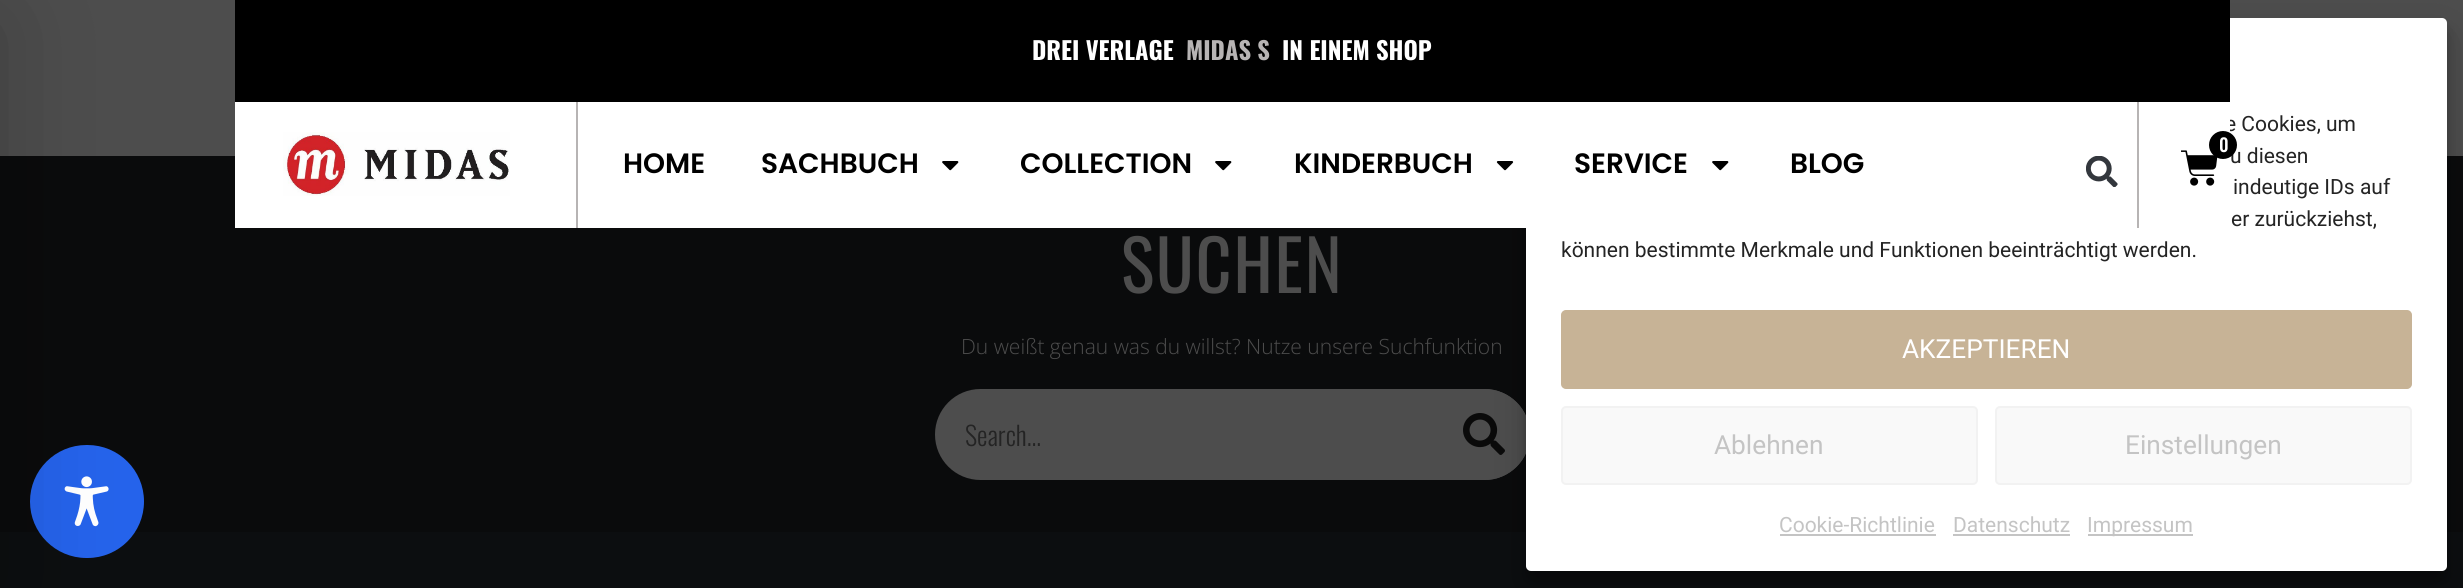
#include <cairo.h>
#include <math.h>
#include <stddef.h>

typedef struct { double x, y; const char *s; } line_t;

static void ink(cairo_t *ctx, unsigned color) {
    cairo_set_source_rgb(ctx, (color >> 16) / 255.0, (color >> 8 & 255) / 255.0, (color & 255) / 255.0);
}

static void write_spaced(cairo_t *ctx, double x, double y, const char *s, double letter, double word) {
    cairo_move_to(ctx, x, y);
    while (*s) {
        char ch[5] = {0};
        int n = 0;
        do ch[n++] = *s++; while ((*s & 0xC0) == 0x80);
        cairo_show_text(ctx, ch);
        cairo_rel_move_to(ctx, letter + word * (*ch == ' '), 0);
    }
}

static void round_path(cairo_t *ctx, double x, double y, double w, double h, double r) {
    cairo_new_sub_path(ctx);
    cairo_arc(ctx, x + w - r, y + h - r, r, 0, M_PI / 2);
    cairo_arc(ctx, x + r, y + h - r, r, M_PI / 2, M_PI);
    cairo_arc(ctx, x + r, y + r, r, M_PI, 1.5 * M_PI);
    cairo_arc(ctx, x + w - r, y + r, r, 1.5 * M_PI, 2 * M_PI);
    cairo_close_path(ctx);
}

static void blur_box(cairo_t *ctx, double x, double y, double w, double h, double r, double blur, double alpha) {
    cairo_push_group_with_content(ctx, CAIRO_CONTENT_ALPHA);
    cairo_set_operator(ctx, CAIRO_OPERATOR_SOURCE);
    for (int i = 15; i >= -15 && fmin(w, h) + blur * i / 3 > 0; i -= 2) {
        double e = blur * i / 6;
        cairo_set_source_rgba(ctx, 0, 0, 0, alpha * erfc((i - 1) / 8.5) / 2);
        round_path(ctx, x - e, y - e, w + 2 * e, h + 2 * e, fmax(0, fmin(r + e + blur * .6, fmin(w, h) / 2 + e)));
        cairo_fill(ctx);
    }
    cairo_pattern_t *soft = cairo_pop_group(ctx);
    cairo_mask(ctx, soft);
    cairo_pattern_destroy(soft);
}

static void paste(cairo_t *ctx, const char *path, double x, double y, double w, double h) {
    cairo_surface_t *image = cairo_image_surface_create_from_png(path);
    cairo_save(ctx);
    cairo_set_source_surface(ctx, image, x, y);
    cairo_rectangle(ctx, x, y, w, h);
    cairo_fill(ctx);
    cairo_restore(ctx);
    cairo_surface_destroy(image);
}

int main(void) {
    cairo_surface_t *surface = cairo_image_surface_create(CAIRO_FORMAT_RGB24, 2463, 588);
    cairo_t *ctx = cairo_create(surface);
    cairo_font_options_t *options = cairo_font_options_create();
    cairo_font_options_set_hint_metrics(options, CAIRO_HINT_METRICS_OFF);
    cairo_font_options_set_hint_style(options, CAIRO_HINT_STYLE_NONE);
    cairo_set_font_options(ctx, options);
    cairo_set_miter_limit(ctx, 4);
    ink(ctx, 0x4D4D4D);
    cairo_paint(ctx);
    ink(ctx, 0x0A0B0C);
    cairo_rectangle(ctx, 0, 156, 2463, 376);
    cairo_fill(ctx);
    ink(ctx, 0x0C0E10);
    cairo_rectangle(ctx, 0, 532, 2463, 56);
    cairo_fill(ctx);
    ink(ctx, 0x2563EB);
    round_path(ctx, 30, 445, 114, 113, 56.5);
    cairo_fill(ctx);
    paste(ctx, "media/7.png", 64, 476, 45, 51);
    ink(ctx, 0x000000);
    blur_box(ctx, -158, 18, 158, 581, 0, 52.5, 0.2);
    ink(ctx, 0x4D4D4D);
    round_path(ctx, 935, 389, 595, 91, 45.5);
    cairo_fill(ctx);
    cairo_new_path(ctx);
    cairo_move_to(ctx, 1439, 389);
    cairo_line_to(ctx, 1484.5, 389);
    cairo_curve_to(ctx, 1509.5, 389, 1530, 409.5, 1530, 434.5);
    cairo_curve_to(ctx, 1530, 459.5, 1509.5, 480, 1484.5, 480);
    cairo_line_to(ctx, 1439, 480);
    cairo_close_path(ctx);
    cairo_fill(ctx);
    ink(ctx, 0x000000);
    blur_box(ctx, 1526, 28, 921, 553, 5, 5, 0.23);
    paste(ctx, "media/6.png", 1463, 413, 42, 42);
    blur_box(ctx, 1526, 35, 921, 553, 5, 17.5, 0.19);
    ink(ctx, 0xFFFFFF);
    round_path(ctx, 1526, 18, 921, 553, 5);
    cairo_fill(ctx);
    ink(ctx, 0x000000);
    cairo_rectangle(ctx, 235, 0, 1995, 102);
    cairo_fill(ctx);
    cairo_select_font_face(ctx, "Oswald", CAIRO_FONT_SLANT_NORMAL, CAIRO_FONT_WEIGHT_BOLD);
    cairo_set_font_size(ctx, 24.5);
    ink(ctx, 0xFFFFFF);
    cairo_move_to(ctx, 1032, 60);
    cairo_show_text(ctx, "DREI VERLAGE");
    ink(ctx, 0xB7B4B4);
    cairo_move_to(ctx, 1186, 60);
    cairo_show_text(ctx, "MIDAS S");
    ink(ctx, 0xFFFFFF);
    cairo_move_to(ctx, 1282, 60);
    cairo_show_text(ctx, "IN EINEM SHOP");
    cairo_select_font_face(ctx, "Roboto", CAIRO_FONT_SLANT_NORMAL, CAIRO_FONT_WEIGHT_NORMAL);
    cairo_set_font_size(ctx, 21);
    ink(ctx, 0x242424);
    cairo_move_to(ctx, 2225, 131);
    cairo_show_text(ctx, "e Cookies, um");
    ink(ctx, 0xFFFFFF);
    cairo_rectangle(ctx, 235, 102, 1995, 126);
    cairo_fill(ctx);
    paste(ctx, "media/1.png", 283, 132, 227, 64);
    ink(ctx, 0xB7B4B4);
    cairo_rectangle(ctx, 2137, 102, 2, 126);
    cairo_fill(ctx);
    paste(ctx, "media/2.png", 2181, 150, 37, 36);
    ink(ctx, 0x242424);
    cairo_move_to(ctx, 2230, 163);
    cairo_show_text(ctx, "u diesen");
    ink(ctx, 0x000000);
    cairo_new_path(ctx);
    cairo_arc(ctx, 2223, 145, 14, 0, 2 * M_PI);
    cairo_fill(ctx);
    cairo_select_font_face(ctx, "Oswald Medium", CAIRO_FONT_SLANT_NORMAL, CAIRO_FONT_WEIGHT_NORMAL);
    cairo_set_font_size(ctx, 18);
    ink(ctx, 0xFFFFFF);
    cairo_move_to(ctx, 2219, 152);
    cairo_show_text(ctx, "0");
    ink(ctx, 0xB7B4B4);
    cairo_rectangle(ctx, 576, 102, 2, 126);
    cairo_fill(ctx);
    cairo_select_font_face(ctx, "Poppins SemiBold", CAIRO_FONT_SLANT_NORMAL, CAIRO_FONT_WEIGHT_NORMAL);
    cairo_set_font_size(ctx, 28);
    ink(ctx, 0x000000);
    cairo_move_to(ctx, 623, 173);
    cairo_show_text(ctx, "HOME");
    cairo_move_to(ctx, 761, 173);
    cairo_show_text(ctx, "SACHBUCH");
    paste(ctx, "media/3.png", 942, 161, 17, 10);
    cairo_move_to(ctx, 1020, 173);
    cairo_show_text(ctx, "COLLECTION");
    paste(ctx, "media/3.png", 1215, 161, 17, 10);
    cairo_move_to(ctx, 1294, 173);
    cairo_show_text(ctx, "KINDERBUCH");
    paste(ctx, "media/4.png", 1496, 161, 18, 10);
    cairo_move_to(ctx, 1574, 173);
    cairo_show_text(ctx, "SERVICE");
    paste(ctx, "media/3.png", 1712, 161, 17, 10);
    cairo_move_to(ctx, 1790, 173);
    cairo_show_text(ctx, "BLOG");
    paste(ctx, "media/5.png", 2086, 156, 32, 31);
    cairo_select_font_face(ctx, "Oswald", CAIRO_FONT_SLANT_NORMAL, CAIRO_FONT_WEIGHT_NORMAL);
    cairo_set_font_size(ctx, 70);
    ink(ctx, 0x4D4D4D);
    write_spaced(ctx, 1121, 293, "SUCHEN", 1.75, 0);
    cairo_select_font_face(ctx, "Open Sans Light", CAIRO_FONT_SLANT_NORMAL, CAIRO_FONT_WEIGHT_NORMAL);
    cairo_set_font_size(ctx, 21);
    cairo_move_to(ctx, 961, 354);
    cairo_show_text(ctx, "Du weißt genau was du willst? Nutze unsere Suchfunktion");
    cairo_select_font_face(ctx, "Oswald Light", CAIRO_FONT_SLANT_NORMAL, CAIRO_FONT_WEIGHT_NORMAL);
    cairo_set_font_size(ctx, 26.25);
    ink(ctx, 0x242424);
    cairo_move_to(ctx, 965, 446);
    cairo_show_text(ctx, "Search...");
    cairo_select_font_face(ctx, "Roboto", CAIRO_FONT_SLANT_NORMAL, CAIRO_FONT_WEIGHT_NORMAL);
    cairo_set_font_size(ctx, 21);
    {
        static const line_t items[] = {
            {2233, 194, "indeutige IDs auf"},
            {2231, 226, "er zurückziehst,"},
            {1561, 257, "können bestimmte Merkmale und Funktionen beeinträchtigt werden."},
        };
        for (size_t i = 0; i < sizeof items / sizeof *items; i++) {
            cairo_move_to(ctx, items[i].x, items[i].y);
            cairo_show_text(ctx, items[i].s);
        }
    }
    ink(ctx, 0xC7B396);
    round_path(ctx, 1562, 311, 849, 77, 4);
    cairo_fill_preserve(ctx);
    cairo_stroke(ctx);
    cairo_set_font_size(ctx, 26.25);
    ink(ctx, 0xFFFFFF);
    cairo_move_to(ctx, 1902, 358);
    cairo_show_text(ctx, "AKZEPTIEREN");
    ink(ctx, 0xF9F9F9);
    round_path(ctx, 1562, 407, 415, 77, 4);
    cairo_fill_preserve(ctx);
    ink(ctx, 0xF2F2F2);
    cairo_stroke(ctx);
    ink(ctx, 0xC4C4C4);
    cairo_move_to(ctx, 1714, 454);
    cairo_show_text(ctx, "Ablehnen");
    ink(ctx, 0xF9F9F9);
    round_path(ctx, 1996, 407, 415, 77, 4);
    cairo_fill_preserve(ctx);
    ink(ctx, 0xF2F2F2);
    cairo_stroke(ctx);
    ink(ctx, 0xC4C4C4);
    cairo_move_to(ctx, 2125, 454);
    cairo_show_text(ctx, "Einstellungen");
    cairo_set_font_size(ctx, 21);
    cairo_move_to(ctx, 1779, 532);
    cairo_show_text(ctx, "Cookie-Richtlinie");
    cairo_rectangle(ctx, 1780, 534, 156, 2);
    cairo_fill(ctx);
    cairo_move_to(ctx, 1953, 532);
    cairo_show_text(ctx, "Datenschutz");
    cairo_rectangle(ctx, 1953, 534, 117, 2);
    cairo_fill(ctx);
    cairo_rectangle(ctx, 2088, 534, 105, 2);
    cairo_fill(ctx);
    cairo_move_to(ctx, 2087, 532);
    cairo_show_text(ctx, "Impressum");
    cairo_surface_write_to_png(surface, "image.png");
    cairo_font_options_destroy(options);
    cairo_destroy(ctx);
    cairo_surface_destroy(surface);
    return 0;
}
